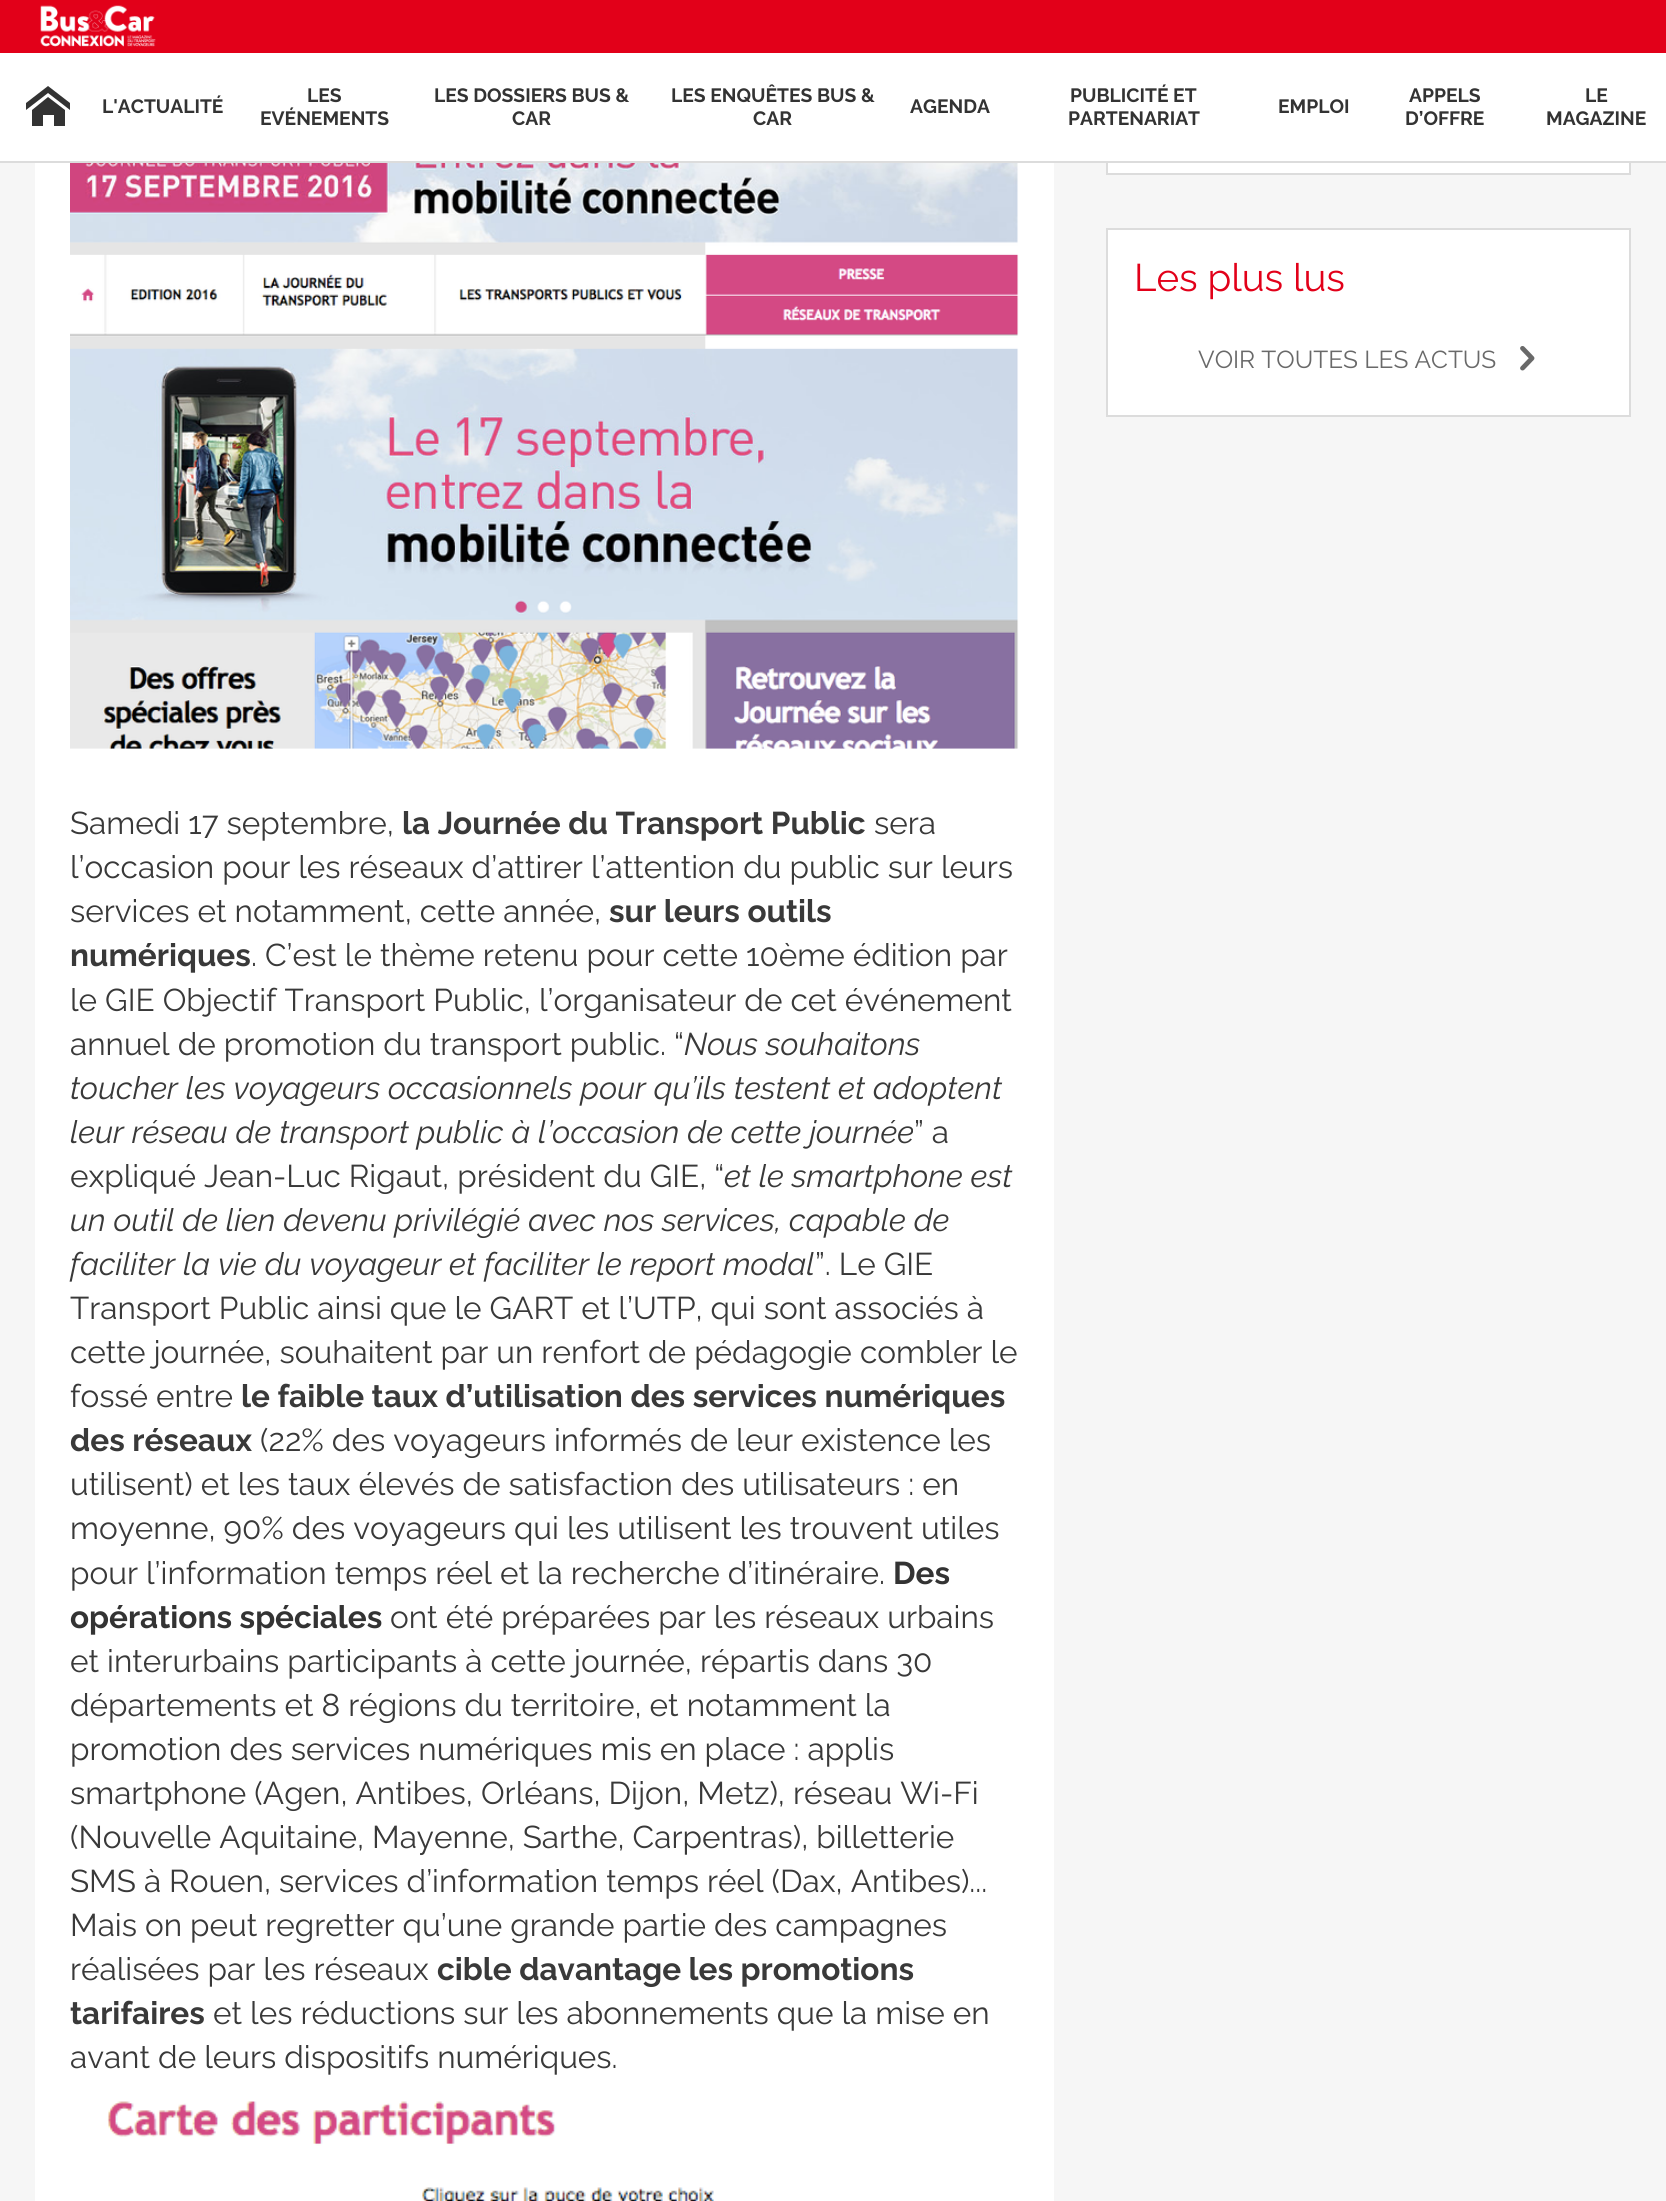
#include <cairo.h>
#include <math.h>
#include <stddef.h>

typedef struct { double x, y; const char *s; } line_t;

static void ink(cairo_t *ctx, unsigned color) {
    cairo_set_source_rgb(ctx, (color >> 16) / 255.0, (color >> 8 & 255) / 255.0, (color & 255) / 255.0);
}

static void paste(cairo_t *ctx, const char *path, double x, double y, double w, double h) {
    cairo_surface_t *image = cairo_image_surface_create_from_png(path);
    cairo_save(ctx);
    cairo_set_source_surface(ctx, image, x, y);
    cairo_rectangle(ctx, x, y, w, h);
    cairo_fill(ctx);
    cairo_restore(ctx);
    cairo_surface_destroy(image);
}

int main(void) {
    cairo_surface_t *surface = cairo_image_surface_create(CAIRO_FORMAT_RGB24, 1666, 2201);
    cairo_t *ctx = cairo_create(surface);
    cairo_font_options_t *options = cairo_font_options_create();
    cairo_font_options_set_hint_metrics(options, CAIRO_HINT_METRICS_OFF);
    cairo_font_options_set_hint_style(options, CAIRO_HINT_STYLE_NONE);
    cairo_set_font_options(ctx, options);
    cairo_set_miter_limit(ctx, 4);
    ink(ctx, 0xF6F6F6);
    cairo_paint(ctx);
    ink(ctx, 0xFFFFFF);
    cairo_rectangle(ctx, 1108, 163, 521, 10);
    cairo_fill(ctx);
    cairo_rectangle(ctx, 1107, -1, 523, 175);
    ink(ctx, 0xDCDCDC);
    cairo_stroke(ctx);
    ink(ctx, 0xE20019);
    cairo_rectangle(ctx, 0, 0, 1666, 53);
    cairo_fill(ctx);
    ink(ctx, 0xDCDCDC);
    cairo_rectangle(ctx, 0, 161, 1666, 2);
    cairo_fill(ctx);
    paste(ctx, "media/1.png", 40, 5, 116, 42);
    ink(ctx, 0xFFFFFF);
    cairo_rectangle(ctx, 0, 53, 1666, 108);
    cairo_fill(ctx);
    ink(ctx, 0x333333);
    cairo_new_path(ctx);
    cairo_move_to(ctx, 70, 110);
    cairo_line_to(ctx, 48, 93);
    cairo_line_to(ctx, 26, 110);
    cairo_line_to(ctx, 26, 103);
    cairo_line_to(ctx, 48, 86);
    cairo_line_to(ctx, 70, 103);
    cairo_close_path(ctx);
    cairo_move_to(ctx, 65, 110);
    cairo_line_to(ctx, 65, 126);
    cairo_line_to(ctx, 54, 126);
    cairo_line_to(ctx, 54, 115);
    cairo_line_to(ctx, 43, 115);
    cairo_line_to(ctx, 43, 126);
    cairo_line_to(ctx, 32, 126);
    cairo_line_to(ctx, 32, 110);
    cairo_line_to(ctx, 48, 97);
    cairo_close_path(ctx);
    cairo_fill(ctx);
    cairo_select_font_face(ctx, "Raleway", CAIRO_FONT_SLANT_NORMAL, CAIRO_FONT_WEIGHT_BOLD);
    cairo_set_font_size(ctx, 19.25);
    {
        static const line_t items[] = {
            {102, 113, "L'ACTUALITÉ"},
            {307, 102, "LES"},
            {260, 125, "EVÉNEMENTS"},
            {434, 102, "LES DOSSIERS BUS &"},
            {512, 125, "CAR"},
            {671, 102, "LES ENQUÊTES BUS &"},
            {753, 125, "CAR"},
            {910, 113, "AGENDA"},
            {1070, 102, "PUBLICITÉ ET"},
            {1068, 125, "PARTENARIAT"},
            {1278, 113, "EMPLOI"},
            {1409, 102, "APPELS"},
            {1405, 125, "D’OFFRE"},
            {1585, 102, "LE"},
            {1546, 125, "MAGAZINE"},
        };
        for (size_t i = 0; i < sizeof items / sizeof *items; i++) {
            cairo_move_to(ctx, items[i].x, items[i].y);
            cairo_show_text(ctx, items[i].s);
        }
    }
    ink(ctx, 0xFFFFFF);
    cairo_rectangle(ctx, 1107, 229, 523, 187);
    cairo_fill_preserve(ctx);
    ink(ctx, 0xDCDCDC);
    cairo_stroke(ctx);
    cairo_select_font_face(ctx, "Raleway", CAIRO_FONT_SLANT_NORMAL, CAIRO_FONT_WEIGHT_NORMAL);
    cairo_set_font_size(ctx, 38.5);
    ink(ctx, 0xE20019);
    cairo_move_to(ctx, 1134, 291);
    cairo_show_text(ctx, "Les plus lus");
    cairo_set_font_size(ctx, 24.5);
    ink(ctx, 0x696969);
    cairo_move_to(ctx, 1198, 368);
    cairo_show_text(ctx, "VOIR TOUTES LES ACTUS");
    paste(ctx, "media/2.png", 1520, 346, 15, 25);
    ink(ctx, 0xFFFFFF);
    cairo_rectangle(ctx, 35, 163, 1019, 2038);
    cairo_fill(ctx);
    paste(ctx, "media/3.png", 70, 163, 949, 586);
    cairo_set_font_size(ctx, 31.5);
    ink(ctx, 0x393939);
    cairo_move_to(ctx, 70, 834);
    cairo_show_text(ctx, "Samedi 17 septembre,");
    cairo_select_font_face(ctx, "Raleway", CAIRO_FONT_SLANT_NORMAL, CAIRO_FONT_WEIGHT_BOLD);
    cairo_move_to(ctx, 402, 834);
    cairo_show_text(ctx, "la Journée du Transport Public");
    cairo_select_font_face(ctx, "Raleway", CAIRO_FONT_SLANT_NORMAL, CAIRO_FONT_WEIGHT_NORMAL);
    {
        static const line_t items[] = {
            {874, 834, "sera"},
            {70, 878, "l’occasion pour les réseaux d’attirer l’attention du public sur leurs"},
            {70, 922, "services et notamment, cette année,"},
        };
        for (size_t i = 0; i < sizeof items / sizeof *items; i++) {
            cairo_move_to(ctx, items[i].x, items[i].y);
            cairo_show_text(ctx, items[i].s);
        }
    }
    cairo_select_font_face(ctx, "Raleway", CAIRO_FONT_SLANT_NORMAL, CAIRO_FONT_WEIGHT_BOLD);
    cairo_move_to(ctx, 609, 922);
    cairo_show_text(ctx, "sur leurs outils");
    cairo_move_to(ctx, 70, 966);
    cairo_show_text(ctx, "numériques");
    cairo_select_font_face(ctx, "Raleway", CAIRO_FONT_SLANT_NORMAL, CAIRO_FONT_WEIGHT_NORMAL);
    {
        static const line_t items[] = {
            {251, 966, ". C’est le thème retenu pour cette 10ème édition par"},
            {70, 1011, "le GIE Objectif Transport Public, l’organisateur de cet événement"},
            {70, 1055, "annuel de promotion du transport public. “"},
        };
        for (size_t i = 0; i < sizeof items / sizeof *items; i++) {
            cairo_move_to(ctx, items[i].x, items[i].y);
            cairo_show_text(ctx, items[i].s);
        }
    }
    cairo_select_font_face(ctx, "Raleway", CAIRO_FONT_SLANT_ITALIC, CAIRO_FONT_WEIGHT_NORMAL);
    {
        static const line_t items[] = {
            {684, 1055, "Nous souhaitons"},
            {70, 1099, "toucher les voyageurs occasionnels pour qu’ils testent et adoptent"},
            {70, 1143, "leur réseau de transport public à l’occasion de cette journée"},
        };
        for (size_t i = 0; i < sizeof items / sizeof *items; i++) {
            cairo_move_to(ctx, items[i].x, items[i].y);
            cairo_show_text(ctx, items[i].s);
        }
    }
    cairo_select_font_face(ctx, "Raleway", CAIRO_FONT_SLANT_NORMAL, CAIRO_FONT_WEIGHT_NORMAL);
    cairo_move_to(ctx, 914, 1143);
    cairo_show_text(ctx, "” a");
    cairo_move_to(ctx, 70, 1187);
    cairo_show_text(ctx, "expliqué Jean-Luc Rigaut, président du GIE, “");
    cairo_select_font_face(ctx, "Raleway", CAIRO_FONT_SLANT_ITALIC, CAIRO_FONT_WEIGHT_NORMAL);
    {
        static const line_t items[] = {
            {724, 1187, "et le smartphone est"},
            {70, 1231, "un outil de lien devenu privilégié avec nos services, capable de"},
            {70, 1275, "faciliter la vie du voyageur et faciliter le report modal"},
        };
        for (size_t i = 0; i < sizeof items / sizeof *items; i++) {
            cairo_move_to(ctx, items[i].x, items[i].y);
            cairo_show_text(ctx, items[i].s);
        }
    }
    cairo_select_font_face(ctx, "Raleway", CAIRO_FONT_SLANT_NORMAL, CAIRO_FONT_WEIGHT_NORMAL);
    {
        static const line_t items[] = {
            {815, 1275, "”. Le GIE"},
            {70, 1319, "Transport Public ainsi que le GART et l’UTP, qui sont associés à"},
            {70, 1363, "cette journée, souhaitent par un renfort de pédagogie combler le"},
            {70, 1407, "fossé entre"},
        };
        for (size_t i = 0; i < sizeof items / sizeof *items; i++) {
            cairo_move_to(ctx, items[i].x, items[i].y);
            cairo_show_text(ctx, items[i].s);
        }
    }
    cairo_select_font_face(ctx, "Raleway", CAIRO_FONT_SLANT_NORMAL, CAIRO_FONT_WEIGHT_BOLD);
    cairo_move_to(ctx, 241, 1407);
    cairo_show_text(ctx, "le faible taux d’utilisation des services numériques");
    cairo_move_to(ctx, 70, 1451);
    cairo_show_text(ctx, "des réseaux");
    cairo_select_font_face(ctx, "Raleway", CAIRO_FONT_SLANT_NORMAL, CAIRO_FONT_WEIGHT_NORMAL);
    {
        static const line_t items[] = {
            {260, 1451, "(22% des voyageurs informés de leur existence les"},
            {70, 1495, "utilisent) et les taux élevés de satisfaction des utilisateurs : en"},
            {70, 1539, "moyenne, 90% des voyageurs qui les utilisent les trouvent utiles"},
            {70, 1584, "pour l’information temps réel et la recherche d’itinéraire."},
        };
        for (size_t i = 0; i < sizeof items / sizeof *items; i++) {
            cairo_move_to(ctx, items[i].x, items[i].y);
            cairo_show_text(ctx, items[i].s);
        }
    }
    cairo_select_font_face(ctx, "Raleway", CAIRO_FONT_SLANT_NORMAL, CAIRO_FONT_WEIGHT_BOLD);
    ink(ctx, 0x333333);
    cairo_move_to(ctx, 893, 1584);
    cairo_show_text(ctx, "Des");
    cairo_move_to(ctx, 70, 1628);
    cairo_show_text(ctx, "opérations spéciales");
    cairo_select_font_face(ctx, "Raleway", CAIRO_FONT_SLANT_NORMAL, CAIRO_FONT_WEIGHT_NORMAL);
    ink(ctx, 0x393939);
    {
        static const line_t items[] = {
            {390, 1628, "ont été préparées par les réseaux urbains"},
            {70, 1672, "et interurbains participants à cette journée, répartis dans 30"},
            {70, 1716, "départements et 8 régions du territoire, et notamment la"},
            {70, 1760, "promotion des services numériques mis en place : applis"},
            {70, 1804, "smartphone (Agen, Antibes, Orléans, Dijon, Metz), réseau Wi-Fi"},
            {70, 1848, "(Nouvelle Aquitaine, Mayenne, Sarthe, Carpentras), billetterie"},
            {70, 1892, "SMS à Rouen, services d’information temps réel (Dax, Antibes)..."},
            {70, 1936, "Mais on peut regretter qu’une grande partie des campagnes"},
            {70, 1980, "réalisées par les réseaux"},
        };
        for (size_t i = 0; i < sizeof items / sizeof *items; i++) {
            cairo_move_to(ctx, items[i].x, items[i].y);
            cairo_show_text(ctx, items[i].s);
        }
    }
    cairo_select_font_face(ctx, "Raleway", CAIRO_FONT_SLANT_NORMAL, CAIRO_FONT_WEIGHT_BOLD);
    cairo_move_to(ctx, 437, 1980);
    cairo_show_text(ctx, "cible davantage les promotions");
    cairo_move_to(ctx, 70, 2024);
    cairo_show_text(ctx, "tarifaires");
    cairo_select_font_face(ctx, "Raleway", CAIRO_FONT_SLANT_NORMAL, CAIRO_FONT_WEIGHT_NORMAL);
    cairo_move_to(ctx, 213, 2024);
    cairo_show_text(ctx, "et les réductions sur les abonnements que la mise en");
    cairo_move_to(ctx, 70, 2068);
    cairo_show_text(ctx, "avant de leurs dispositifs numériques.");
    paste(ctx, "media/4.png", 107, 2101, 607, 100);
    cairo_surface_write_to_png(surface, "image.png");
    cairo_font_options_destroy(options);
    cairo_destroy(ctx);
    cairo_surface_destroy(surface);
    return 0;
}
